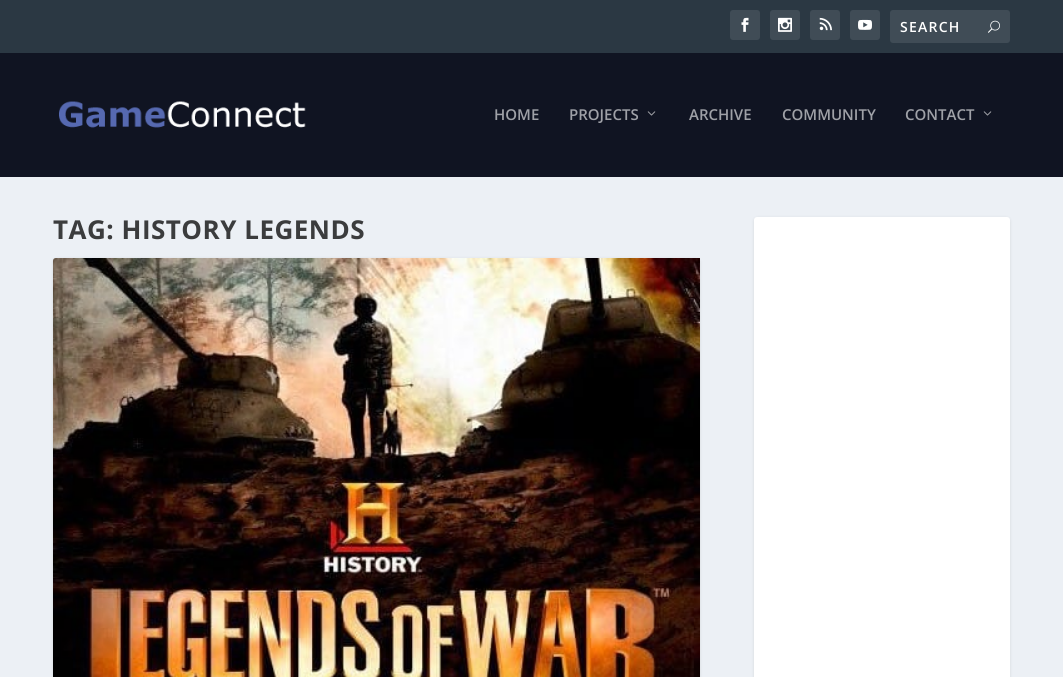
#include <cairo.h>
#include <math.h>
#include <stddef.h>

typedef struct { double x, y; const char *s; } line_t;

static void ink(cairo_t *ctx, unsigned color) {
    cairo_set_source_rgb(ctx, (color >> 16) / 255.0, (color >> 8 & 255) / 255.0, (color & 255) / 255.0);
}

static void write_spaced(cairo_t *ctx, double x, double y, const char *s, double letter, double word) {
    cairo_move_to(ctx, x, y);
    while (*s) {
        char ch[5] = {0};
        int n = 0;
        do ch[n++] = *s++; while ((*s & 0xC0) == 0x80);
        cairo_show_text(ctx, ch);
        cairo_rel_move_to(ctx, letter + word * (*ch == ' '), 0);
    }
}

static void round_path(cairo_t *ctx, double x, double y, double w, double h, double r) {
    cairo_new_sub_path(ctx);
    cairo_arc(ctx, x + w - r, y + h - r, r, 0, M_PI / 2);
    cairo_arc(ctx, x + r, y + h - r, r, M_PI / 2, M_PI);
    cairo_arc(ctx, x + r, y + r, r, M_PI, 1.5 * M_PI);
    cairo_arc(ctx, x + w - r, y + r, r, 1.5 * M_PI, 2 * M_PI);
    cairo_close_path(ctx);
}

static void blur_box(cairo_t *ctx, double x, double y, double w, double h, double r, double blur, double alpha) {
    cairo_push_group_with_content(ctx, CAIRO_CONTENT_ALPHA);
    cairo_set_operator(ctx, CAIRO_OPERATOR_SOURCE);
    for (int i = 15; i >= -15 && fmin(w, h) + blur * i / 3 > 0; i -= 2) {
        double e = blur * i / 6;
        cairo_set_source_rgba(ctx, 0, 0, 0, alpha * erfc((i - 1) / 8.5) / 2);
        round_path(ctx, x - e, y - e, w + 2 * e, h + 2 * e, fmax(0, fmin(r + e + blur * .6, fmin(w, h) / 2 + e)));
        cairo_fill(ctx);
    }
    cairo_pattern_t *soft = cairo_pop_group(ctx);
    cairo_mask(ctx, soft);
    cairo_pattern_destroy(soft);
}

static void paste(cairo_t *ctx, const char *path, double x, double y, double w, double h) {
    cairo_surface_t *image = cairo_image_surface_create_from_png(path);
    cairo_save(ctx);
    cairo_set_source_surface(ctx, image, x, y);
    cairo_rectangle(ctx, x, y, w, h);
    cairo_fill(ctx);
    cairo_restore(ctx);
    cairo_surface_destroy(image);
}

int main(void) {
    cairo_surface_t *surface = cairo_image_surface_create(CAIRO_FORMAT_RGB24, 1063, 677);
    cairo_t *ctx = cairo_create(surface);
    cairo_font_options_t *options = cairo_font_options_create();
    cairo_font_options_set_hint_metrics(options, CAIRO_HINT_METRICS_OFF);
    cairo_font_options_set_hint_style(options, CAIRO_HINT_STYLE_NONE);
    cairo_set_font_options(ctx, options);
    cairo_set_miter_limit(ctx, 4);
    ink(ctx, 0xECF0F5);
    cairo_paint(ctx);
    ink(ctx, 0x2B3843);
    cairo_rectangle(ctx, 0, 0, 1063, 53);
    cairo_fill(ctx);
    ink(ctx, 0x404C56);
    round_path(ctx, 730, 10, 30, 30, 3);
    cairo_fill(ctx);
    paste(ctx, "media/1.png", 741, 17, 8, 15);
    round_path(ctx, 770, 10, 30, 30, 3);
    cairo_fill(ctx);
    paste(ctx, "media/2.png", 778, 17, 14, 15);
    round_path(ctx, 810, 10, 30, 30, 3);
    cairo_fill(ctx);
    paste(ctx, "media/3.png", 819, 17, 13, 14);
    round_path(ctx, 850, 10, 30, 30, 3);
    cairo_fill(ctx);
    paste(ctx, "media/4.png", 858, 19, 14, 11);
    round_path(ctx, 890, 10, 120, 33, 3);
    cairo_fill(ctx);
    cairo_select_font_face(ctx, "Open Sans SemiBold", CAIRO_FONT_SLANT_NORMAL, CAIRO_FONT_WEIGHT_NORMAL);
    cairo_set_font_size(ctx, 14);
    ink(ctx, 0xFFFFFF);
    write_spaced(ctx, 900, 32, "SEARCH", 1.25, 0);
    paste(ctx, "media/5.png", 988, 20, 12, 13);
    ink(ctx, 0x101422);
    cairo_rectangle(ctx, 0, 53, 1063, 124);
    cairo_fill(ctx);
    paste(ctx, "media/6.png", 59, 101, 247, 27);
    cairo_set_font_size(ctx, 15);
    ink(ctx, 0x9FA1A7);
    cairo_move_to(ctx, 494, 120);
    cairo_show_text(ctx, "HOME");
    cairo_move_to(ctx, 569, 120);
    cairo_show_text(ctx, "PROJECTS");
    paste(ctx, "media/7.png", 647, 111, 9, 5);
    {
        static const line_t items[] = {
            {689, 120, "ARCHIVE"},
            {782, 120, "COMMUNITY"},
            {905, 120, "CONTACT"},
        };
        for (size_t i = 0; i < sizeof items / sizeof *items; i++) {
            cairo_move_to(ctx, items[i].x, items[i].y);
            cairo_show_text(ctx, items[i].s);
        }
    }
    paste(ctx, "media/7.png", 983, 111, 9, 5);
    cairo_select_font_face(ctx, "Open Sans", CAIRO_FONT_SLANT_NORMAL, CAIRO_FONT_WEIGHT_BOLD);
    cairo_set_font_size(ctx, 26);
    ink(ctx, 0x3B3C3D);
    write_spaced(ctx, 53, 239, "TAG: HISTORY LEGENDS", 0.5, 0);
    ink(ctx, 0x000000);
    blur_box(ctx, 53, 259, 647, 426, 3, 1.5, 0.1);
    paste(ctx, "media/8.png", 53, 258, 647, 419);
    blur_box(ctx, 754, 218, 256, 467, 3, 1.5, 0.1);
    ink(ctx, 0xFFFFFF);
    round_path(ctx, 754, 217, 256, 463, 3);
    cairo_fill(ctx);
    cairo_surface_write_to_png(surface, "image.png");
    cairo_font_options_destroy(options);
    cairo_destroy(ctx);
    cairo_surface_destroy(surface);
    return 0;
}
